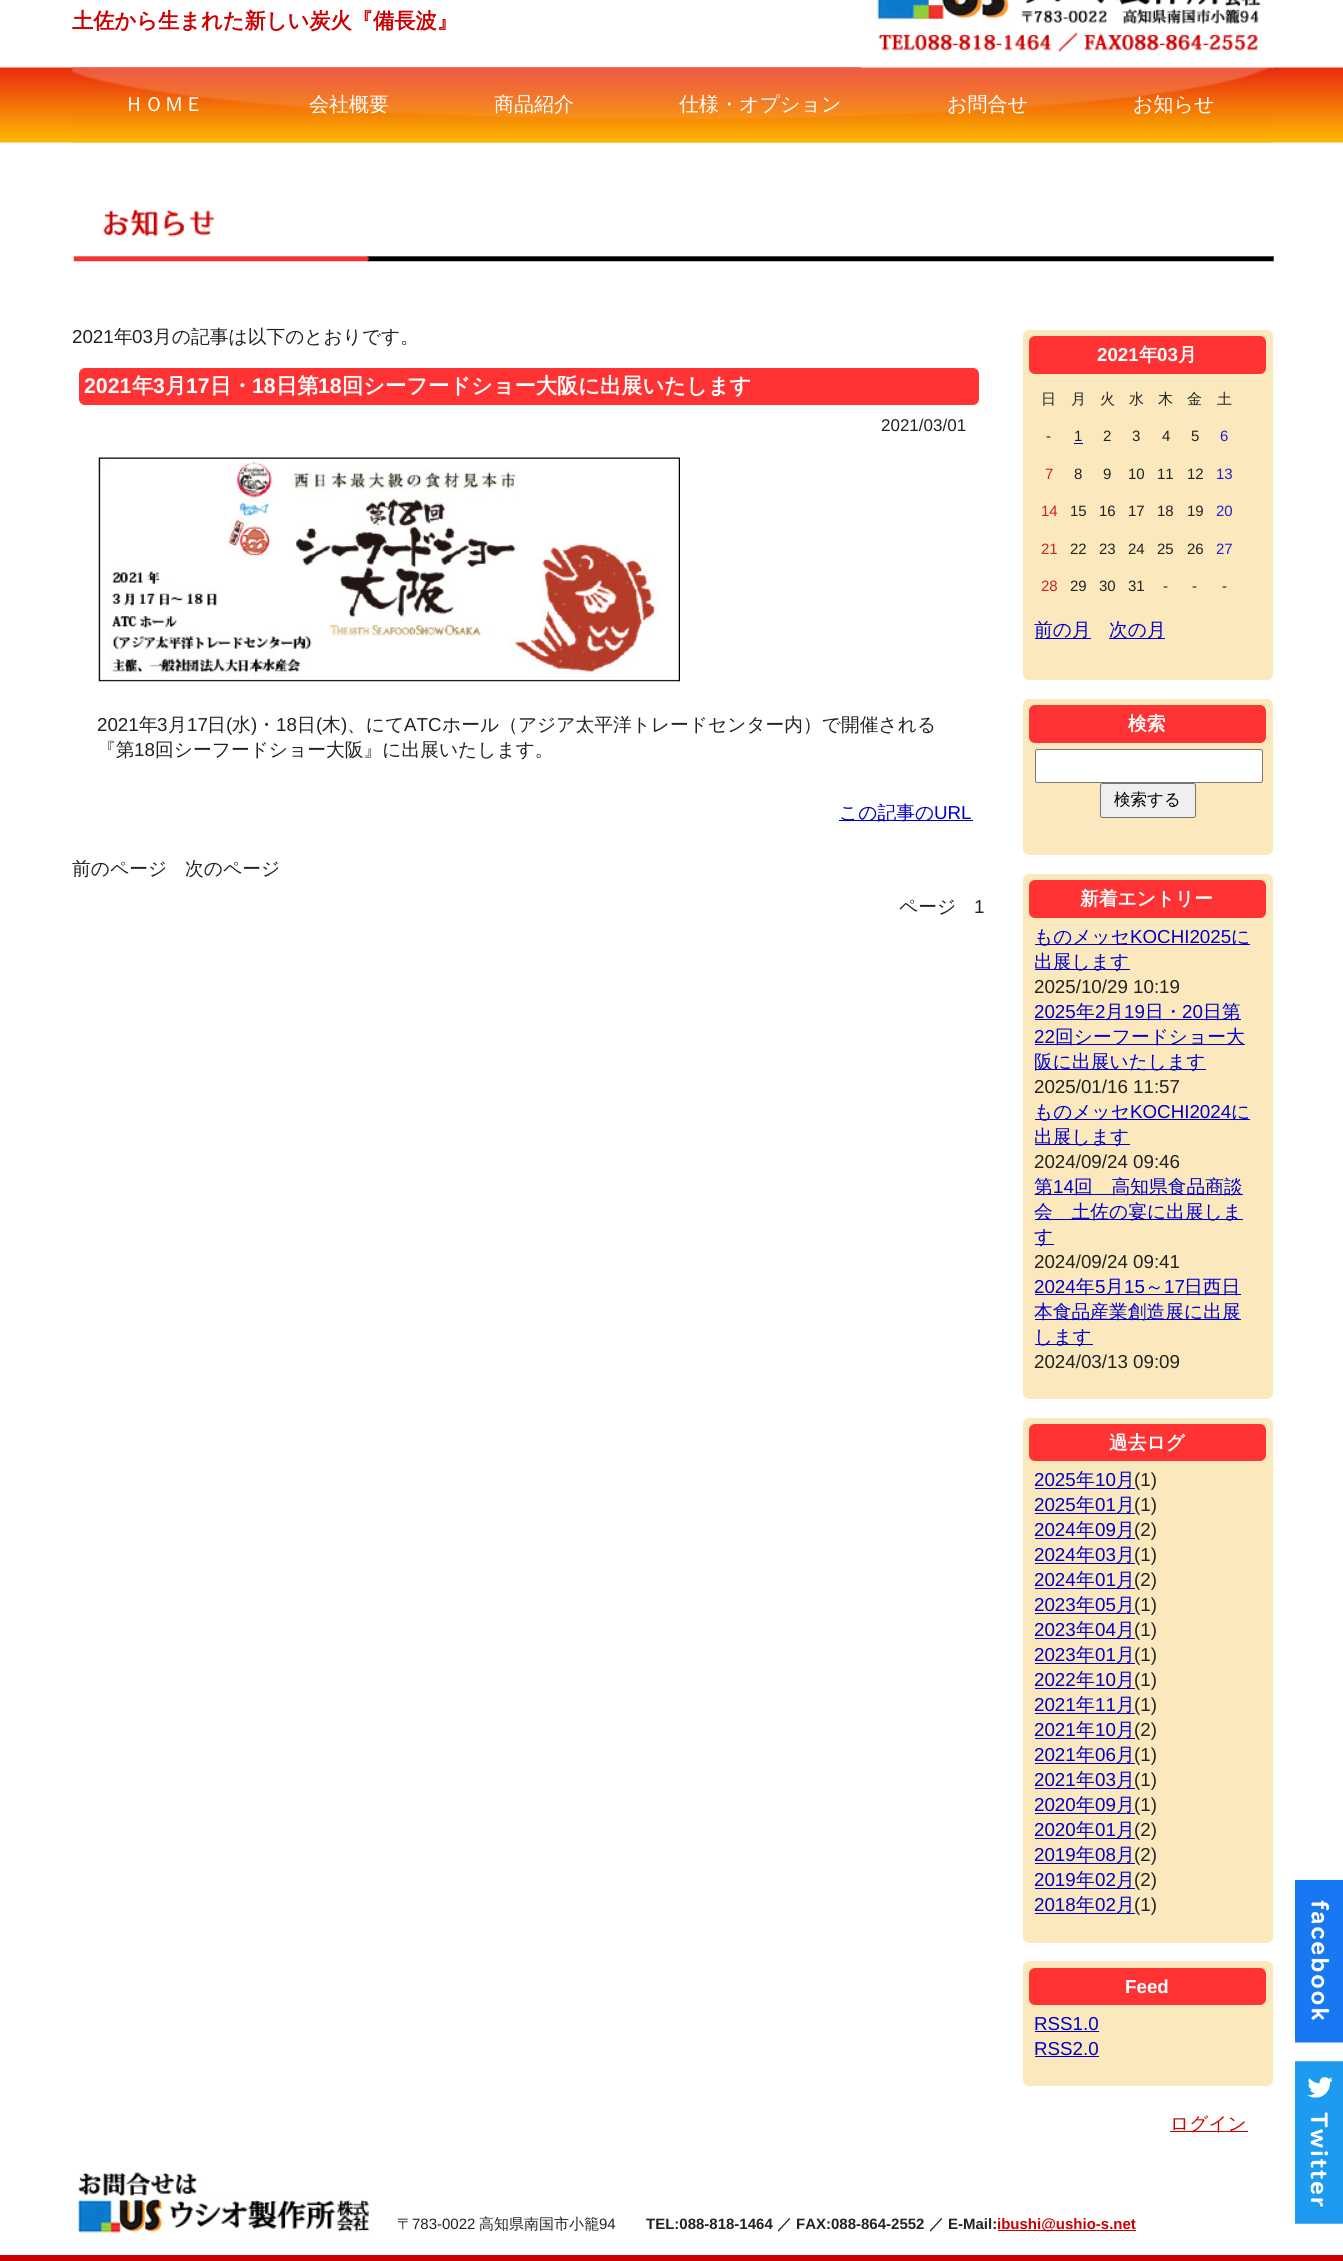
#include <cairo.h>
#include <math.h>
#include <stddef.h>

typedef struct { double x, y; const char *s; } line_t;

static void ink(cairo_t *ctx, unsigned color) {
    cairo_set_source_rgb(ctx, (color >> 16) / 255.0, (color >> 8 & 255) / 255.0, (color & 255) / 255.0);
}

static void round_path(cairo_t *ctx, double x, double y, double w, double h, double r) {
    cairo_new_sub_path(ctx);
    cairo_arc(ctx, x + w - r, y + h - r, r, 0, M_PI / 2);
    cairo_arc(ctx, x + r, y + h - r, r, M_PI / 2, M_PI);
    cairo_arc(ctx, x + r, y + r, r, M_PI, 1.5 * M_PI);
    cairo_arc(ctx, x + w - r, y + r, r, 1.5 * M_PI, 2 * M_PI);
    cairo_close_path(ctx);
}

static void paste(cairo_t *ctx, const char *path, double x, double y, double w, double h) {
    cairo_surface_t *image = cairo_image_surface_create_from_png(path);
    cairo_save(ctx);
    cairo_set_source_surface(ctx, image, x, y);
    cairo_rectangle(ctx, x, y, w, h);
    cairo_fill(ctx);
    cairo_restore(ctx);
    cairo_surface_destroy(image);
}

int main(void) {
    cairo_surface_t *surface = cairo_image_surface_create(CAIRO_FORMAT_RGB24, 1343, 2261);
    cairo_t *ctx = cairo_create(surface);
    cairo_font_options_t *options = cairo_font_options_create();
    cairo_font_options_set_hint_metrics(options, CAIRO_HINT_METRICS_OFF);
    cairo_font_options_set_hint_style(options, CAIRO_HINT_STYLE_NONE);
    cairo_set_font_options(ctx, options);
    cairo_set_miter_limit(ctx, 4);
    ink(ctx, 0xFFFFFF);
    cairo_paint(ctx);
    cairo_select_font_face(ctx, "WenQuanYi Zen Hei", CAIRO_FONT_SLANT_NORMAL, CAIRO_FONT_WEIGHT_BOLD);
    cairo_set_font_size(ctx, 21.25);
    ink(ctx, 0xCC0000);
    cairo_move_to(ctx, 72, 28);
    cairo_show_text(ctx, "土佐から生まれた新しい炭火『備長波』");
    paste(ctx, "media/2.png", 0, 67, 1343, 76);
    paste(ctx, "media/3.png", 72, 67, 1201, 76);
    paste(ctx, "media/1.png", 861, 0, 413, 68);
    cairo_select_font_face(ctx, "WenQuanYi Zen Hei Medium", CAIRO_FONT_SLANT_NORMAL, CAIRO_FONT_WEIGHT_NORMAL);
    cairo_set_font_size(ctx, 20);
    ink(ctx, 0xFFFFFF);
    {
        static const line_t items[] = {
            {124, 111, "ＨＯＭＥ"},
            {309, 111, "会社概要"},
            {494, 111, "商品紹介"},
            {679, 111, "仕様・オプション"},
            {947, 111, "お問合せ"},
            {1133, 111, "お知らせ"},
        };
        for (size_t i = 0; i < sizeof items / sizeof *items; i++) {
            cairo_move_to(ctx, items[i].x, items[i].y);
            cairo_show_text(ctx, items[i].s);
        }
    }
    paste(ctx, "media/4.png", 73, 209, 1201, 53);
    cairo_select_font_face(ctx, "Liberation Sans", CAIRO_FONT_SLANT_NORMAL, CAIRO_FONT_WEIGHT_NORMAL);
    cairo_set_font_size(ctx, 18.75);
    ink(ctx, 0x222222);
    cairo_move_to(ctx, 72, 343);
    cairo_show_text(ctx, "2021");
    cairo_select_font_face(ctx, "WenQuanYi Zen Hei Medium", CAIRO_FONT_SLANT_NORMAL, CAIRO_FONT_WEIGHT_NORMAL);
    cairo_move_to(ctx, 114, 343);
    cairo_show_text(ctx, "年");
    cairo_select_font_face(ctx, "Liberation Sans", CAIRO_FONT_SLANT_NORMAL, CAIRO_FONT_WEIGHT_NORMAL);
    cairo_move_to(ctx, 132, 343);
    cairo_show_text(ctx, "03");
    cairo_select_font_face(ctx, "WenQuanYi Zen Hei Medium", CAIRO_FONT_SLANT_NORMAL, CAIRO_FONT_WEIGHT_NORMAL);
    cairo_move_to(ctx, 153, 343);
    cairo_show_text(ctx, "月の記事は以下のとおりです。");
    ink(ctx, 0xFF3333);
    round_path(ctx, 79, 368, 900, 37, 6);
    cairo_fill(ctx);
    cairo_select_font_face(ctx, "Liberation Sans", CAIRO_FONT_SLANT_NORMAL, CAIRO_FONT_WEIGHT_BOLD);
    cairo_set_font_size(ctx, 21.25);
    ink(ctx, 0xFFFFFF);
    cairo_move_to(ctx, 84, 393);
    cairo_show_text(ctx, "2021");
    cairo_select_font_face(ctx, "WenQuanYi Zen Hei", CAIRO_FONT_SLANT_NORMAL, CAIRO_FONT_WEIGHT_BOLD);
    cairo_move_to(ctx, 132, 393);
    cairo_show_text(ctx, "年");
    cairo_select_font_face(ctx, "Liberation Sans", CAIRO_FONT_SLANT_NORMAL, CAIRO_FONT_WEIGHT_BOLD);
    cairo_move_to(ctx, 153, 393);
    cairo_show_text(ctx, "3");
    cairo_select_font_face(ctx, "WenQuanYi Zen Hei", CAIRO_FONT_SLANT_NORMAL, CAIRO_FONT_WEIGHT_BOLD);
    cairo_move_to(ctx, 165, 393);
    cairo_show_text(ctx, "月");
    cairo_select_font_face(ctx, "Liberation Sans", CAIRO_FONT_SLANT_NORMAL, CAIRO_FONT_WEIGHT_BOLD);
    cairo_move_to(ctx, 186, 393);
    cairo_show_text(ctx, "17");
    cairo_select_font_face(ctx, "WenQuanYi Zen Hei", CAIRO_FONT_SLANT_NORMAL, CAIRO_FONT_WEIGHT_BOLD);
    cairo_move_to(ctx, 210, 393);
    cairo_show_text(ctx, "日・");
    cairo_select_font_face(ctx, "Liberation Sans", CAIRO_FONT_SLANT_NORMAL, CAIRO_FONT_WEIGHT_BOLD);
    cairo_move_to(ctx, 252, 393);
    cairo_show_text(ctx, "18");
    cairo_select_font_face(ctx, "WenQuanYi Zen Hei", CAIRO_FONT_SLANT_NORMAL, CAIRO_FONT_WEIGHT_BOLD);
    cairo_move_to(ctx, 276, 393);
    cairo_show_text(ctx, "日第");
    cairo_select_font_face(ctx, "Liberation Sans", CAIRO_FONT_SLANT_NORMAL, CAIRO_FONT_WEIGHT_BOLD);
    cairo_move_to(ctx, 318, 393);
    cairo_show_text(ctx, "18");
    cairo_select_font_face(ctx, "WenQuanYi Zen Hei", CAIRO_FONT_SLANT_NORMAL, CAIRO_FONT_WEIGHT_BOLD);
    cairo_move_to(ctx, 342, 393);
    cairo_show_text(ctx, "回シーフードショー大阪に出展いたします");
    cairo_select_font_face(ctx, "Liberation Sans", CAIRO_FONT_SLANT_NORMAL, CAIRO_FONT_WEIGHT_NORMAL);
    cairo_set_font_size(ctx, 17);
    ink(ctx, 0x222222);
    cairo_move_to(ctx, 881, 431);
    cairo_show_text(ctx, "2021/03/01");
    paste(ctx, "media/5.png", 98, 457, 582, 225);
    cairo_set_font_size(ctx, 18.75);
    cairo_move_to(ctx, 97, 731);
    cairo_show_text(ctx, "2021");
    cairo_select_font_face(ctx, "WenQuanYi Zen Hei Medium", CAIRO_FONT_SLANT_NORMAL, CAIRO_FONT_WEIGHT_NORMAL);
    cairo_move_to(ctx, 139, 731);
    cairo_show_text(ctx, "年");
    cairo_select_font_face(ctx, "Liberation Sans", CAIRO_FONT_SLANT_NORMAL, CAIRO_FONT_WEIGHT_NORMAL);
    cairo_move_to(ctx, 157, 731);
    cairo_show_text(ctx, "3");
    cairo_select_font_face(ctx, "WenQuanYi Zen Hei Medium", CAIRO_FONT_SLANT_NORMAL, CAIRO_FONT_WEIGHT_NORMAL);
    cairo_move_to(ctx, 168, 731);
    cairo_show_text(ctx, "月");
    cairo_select_font_face(ctx, "Liberation Sans", CAIRO_FONT_SLANT_NORMAL, CAIRO_FONT_WEIGHT_NORMAL);
    cairo_move_to(ctx, 187, 731);
    cairo_show_text(ctx, "17");
    cairo_select_font_face(ctx, "WenQuanYi Zen Hei Medium", CAIRO_FONT_SLANT_NORMAL, CAIRO_FONT_WEIGHT_NORMAL);
    cairo_move_to(ctx, 207, 731);
    cairo_show_text(ctx, "日");
    cairo_select_font_face(ctx, "Liberation Sans", CAIRO_FONT_SLANT_NORMAL, CAIRO_FONT_WEIGHT_NORMAL);
    cairo_move_to(ctx, 226, 731);
    cairo_show_text(ctx, "(");
    cairo_select_font_face(ctx, "WenQuanYi Zen Hei Medium", CAIRO_FONT_SLANT_NORMAL, CAIRO_FONT_WEIGHT_NORMAL);
    cairo_move_to(ctx, 232, 731);
    cairo_show_text(ctx, "水");
    cairo_select_font_face(ctx, "Liberation Sans", CAIRO_FONT_SLANT_NORMAL, CAIRO_FONT_WEIGHT_NORMAL);
    cairo_move_to(ctx, 251, 731);
    cairo_show_text(ctx, ")");
    cairo_select_font_face(ctx, "WenQuanYi Zen Hei Medium", CAIRO_FONT_SLANT_NORMAL, CAIRO_FONT_WEIGHT_NORMAL);
    cairo_move_to(ctx, 257, 731);
    cairo_show_text(ctx, "・");
    cairo_select_font_face(ctx, "Liberation Sans", CAIRO_FONT_SLANT_NORMAL, CAIRO_FONT_WEIGHT_NORMAL);
    cairo_move_to(ctx, 276, 731);
    cairo_show_text(ctx, "18");
    cairo_select_font_face(ctx, "WenQuanYi Zen Hei Medium", CAIRO_FONT_SLANT_NORMAL, CAIRO_FONT_WEIGHT_NORMAL);
    cairo_move_to(ctx, 297, 731);
    cairo_show_text(ctx, "日");
    cairo_select_font_face(ctx, "Liberation Sans", CAIRO_FONT_SLANT_NORMAL, CAIRO_FONT_WEIGHT_NORMAL);
    cairo_move_to(ctx, 316, 731);
    cairo_show_text(ctx, "(");
    cairo_select_font_face(ctx, "WenQuanYi Zen Hei Medium", CAIRO_FONT_SLANT_NORMAL, CAIRO_FONT_WEIGHT_NORMAL);
    cairo_move_to(ctx, 322, 731);
    cairo_show_text(ctx, "木");
    cairo_select_font_face(ctx, "Liberation Sans", CAIRO_FONT_SLANT_NORMAL, CAIRO_FONT_WEIGHT_NORMAL);
    cairo_move_to(ctx, 341, 731);
    cairo_show_text(ctx, ")");
    cairo_select_font_face(ctx, "WenQuanYi Zen Hei Medium", CAIRO_FONT_SLANT_NORMAL, CAIRO_FONT_WEIGHT_NORMAL);
    cairo_move_to(ctx, 347, 731);
    cairo_show_text(ctx, "、にて");
    cairo_select_font_face(ctx, "Liberation Sans", CAIRO_FONT_SLANT_NORMAL, CAIRO_FONT_WEIGHT_NORMAL);
    cairo_move_to(ctx, 404, 731);
    cairo_show_text(ctx, "ATC");
    cairo_select_font_face(ctx, "WenQuanYi Zen Hei Medium", CAIRO_FONT_SLANT_NORMAL, CAIRO_FONT_WEIGHT_NORMAL);
    cairo_move_to(ctx, 442, 731);
    cairo_show_text(ctx, "ホール（アジア太平洋トレードセンター内）で開催される");
    cairo_move_to(ctx, 97, 756);
    cairo_show_text(ctx, "『第");
    cairo_select_font_face(ctx, "Liberation Sans", CAIRO_FONT_SLANT_NORMAL, CAIRO_FONT_WEIGHT_NORMAL);
    cairo_move_to(ctx, 134, 756);
    cairo_show_text(ctx, "18");
    cairo_select_font_face(ctx, "WenQuanYi Zen Hei Medium", CAIRO_FONT_SLANT_NORMAL, CAIRO_FONT_WEIGHT_NORMAL);
    cairo_move_to(ctx, 155, 756);
    cairo_show_text(ctx, "回シーフードショー大阪』に出展いたします。");
    ink(ctx, 0x0000CC);
    cairo_rectangle(ctx, 839, 820, 134, 1);
    cairo_fill(ctx);
    cairo_move_to(ctx, 839, 819);
    cairo_show_text(ctx, "この記事の");
    cairo_select_font_face(ctx, "Liberation Sans", CAIRO_FONT_SLANT_NORMAL, CAIRO_FONT_WEIGHT_NORMAL);
    cairo_move_to(ctx, 934, 819);
    cairo_show_text(ctx, "URL");
    cairo_select_font_face(ctx, "WenQuanYi Zen Hei Medium", CAIRO_FONT_SLANT_NORMAL, CAIRO_FONT_WEIGHT_NORMAL);
    ink(ctx, 0x222222);
    {
        static const line_t items[] = {
            {72, 875, "前のページ"},
            {185, 875, "次のページ"},
            {899, 913, "ページ"},
        };
        for (size_t i = 0; i < sizeof items / sizeof *items; i++) {
            cairo_move_to(ctx, items[i].x, items[i].y);
            cairo_show_text(ctx, items[i].s);
        }
    }
    cairo_select_font_face(ctx, "Liberation Sans", CAIRO_FONT_SLANT_NORMAL, CAIRO_FONT_WEIGHT_NORMAL);
    cairo_move_to(ctx, 974, 913);
    cairo_show_text(ctx, "1");
    ink(ctx, 0xFBE9BD);
    round_path(ctx, 1023, 330, 250, 350, 6);
    cairo_fill(ctx);
    ink(ctx, 0xFF3333);
    round_path(ctx, 1029, 336, 237, 38, 6);
    cairo_fill(ctx);
    cairo_select_font_face(ctx, "Liberation Sans", CAIRO_FONT_SLANT_NORMAL, CAIRO_FONT_WEIGHT_BOLD);
    ink(ctx, 0xFFFFFF);
    cairo_move_to(ctx, 1097, 361);
    cairo_show_text(ctx, "2021");
    cairo_select_font_face(ctx, "WenQuanYi Zen Hei", CAIRO_FONT_SLANT_NORMAL, CAIRO_FONT_WEIGHT_BOLD);
    cairo_move_to(ctx, 1139, 361);
    cairo_show_text(ctx, "年");
    cairo_select_font_face(ctx, "Liberation Sans", CAIRO_FONT_SLANT_NORMAL, CAIRO_FONT_WEIGHT_BOLD);
    cairo_move_to(ctx, 1157, 361);
    cairo_show_text(ctx, "03");
    cairo_select_font_face(ctx, "WenQuanYi Zen Hei", CAIRO_FONT_SLANT_NORMAL, CAIRO_FONT_WEIGHT_BOLD);
    cairo_move_to(ctx, 1178, 361);
    cairo_show_text(ctx, "月");
    cairo_select_font_face(ctx, "WenQuanYi Zen Hei Medium", CAIRO_FONT_SLANT_NORMAL, CAIRO_FONT_WEIGHT_NORMAL);
    cairo_set_font_size(ctx, 15);
    ink(ctx, 0x222222);
    {
        static const line_t items[] = {
            {1041, 404, "日"},
            {1071, 404, "月"},
            {1100, 404, "火"},
            {1129, 404, "水"},
            {1158, 404, "木"},
            {1187, 404, "金"},
            {1217, 404, "土"},
        };
        for (size_t i = 0; i < sizeof items / sizeof *items; i++) {
            cairo_move_to(ctx, items[i].x, items[i].y);
            cairo_show_text(ctx, items[i].s);
        }
    }
    cairo_select_font_face(ctx, "Liberation Sans", CAIRO_FONT_SLANT_NORMAL, CAIRO_FONT_WEIGHT_NORMAL);
    cairo_move_to(ctx, 1046, 441);
    cairo_show_text(ctx, "-");
    cairo_move_to(ctx, 1074, 441);
    cairo_show_text(ctx, "1");
    ink(ctx, 0x0000CC);
    cairo_rectangle(ctx, 1074, 443, 9, 1);
    cairo_fill(ctx);
    ink(ctx, 0x222222);
    {
        static const line_t items[] = {
            {1103, 441, "2"},
            {1132, 441, "3"},
            {1162, 441, "4"},
            {1191, 441, "5"},
        };
        for (size_t i = 0; i < sizeof items / sizeof *items; i++) {
            cairo_move_to(ctx, items[i].x, items[i].y);
            cairo_show_text(ctx, items[i].s);
        }
    }
    ink(ctx, 0x2222CC);
    cairo_move_to(ctx, 1220, 441);
    cairo_show_text(ctx, "6");
    ink(ctx, 0xCC2222);
    cairo_move_to(ctx, 1045, 479);
    cairo_show_text(ctx, "7");
    ink(ctx, 0x222222);
    {
        static const line_t items[] = {
            {1074, 479, "8"},
            {1103, 479, "9"},
            {1128, 479, "10"},
            {1157, 479, "11"},
            {1187, 479, "12"},
        };
        for (size_t i = 0; i < sizeof items / sizeof *items; i++) {
            cairo_move_to(ctx, items[i].x, items[i].y);
            cairo_show_text(ctx, items[i].s);
        }
    }
    ink(ctx, 0x2222CC);
    cairo_move_to(ctx, 1216, 479);
    cairo_show_text(ctx, "13");
    ink(ctx, 0xCC2222);
    cairo_move_to(ctx, 1041, 516);
    cairo_show_text(ctx, "14");
    ink(ctx, 0x222222);
    {
        static const line_t items[] = {
            {1070, 516, "15"},
            {1099, 516, "16"},
            {1128, 516, "17"},
            {1157, 516, "18"},
            {1187, 516, "19"},
        };
        for (size_t i = 0; i < sizeof items / sizeof *items; i++) {
            cairo_move_to(ctx, items[i].x, items[i].y);
            cairo_show_text(ctx, items[i].s);
        }
    }
    ink(ctx, 0x2222CC);
    cairo_move_to(ctx, 1216, 516);
    cairo_show_text(ctx, "20");
    ink(ctx, 0xCC2222);
    cairo_move_to(ctx, 1041, 554);
    cairo_show_text(ctx, "21");
    ink(ctx, 0x222222);
    {
        static const line_t items[] = {
            {1070, 554, "22"},
            {1099, 554, "23"},
            {1128, 554, "24"},
            {1157, 554, "25"},
            {1187, 554, "26"},
        };
        for (size_t i = 0; i < sizeof items / sizeof *items; i++) {
            cairo_move_to(ctx, items[i].x, items[i].y);
            cairo_show_text(ctx, items[i].s);
        }
    }
    ink(ctx, 0x2222CC);
    cairo_move_to(ctx, 1216, 554);
    cairo_show_text(ctx, "27");
    ink(ctx, 0xCC2222);
    cairo_move_to(ctx, 1041, 591);
    cairo_show_text(ctx, "28");
    ink(ctx, 0x222222);
    {
        static const line_t items[] = {
            {1070, 591, "29"},
            {1099, 591, "30"},
            {1128, 591, "31"},
            {1163, 591, "-"},
            {1192, 591, "-"},
            {1222, 591, "-"},
        };
        for (size_t i = 0; i < sizeof items / sizeof *items; i++) {
            cairo_move_to(ctx, items[i].x, items[i].y);
            cairo_show_text(ctx, items[i].s);
        }
    }
    ink(ctx, 0x0000CC);
    cairo_rectangle(ctx, 1035, 638, 56, 1);
    cairo_fill(ctx);
    cairo_select_font_face(ctx, "WenQuanYi Zen Hei Medium", CAIRO_FONT_SLANT_NORMAL, CAIRO_FONT_WEIGHT_NORMAL);
    cairo_set_font_size(ctx, 18.75);
    cairo_move_to(ctx, 1034, 636);
    cairo_show_text(ctx, "前の月");
    cairo_rectangle(ctx, 1109, 638, 56, 1);
    cairo_fill(ctx);
    cairo_move_to(ctx, 1109, 636);
    cairo_show_text(ctx, "次の月");
    ink(ctx, 0xFBE9BD);
    round_path(ctx, 1023, 699, 250, 156, 6);
    cairo_fill(ctx);
    ink(ctx, 0xFF3333);
    round_path(ctx, 1029, 705, 237, 38, 6);
    cairo_fill(ctx);
    cairo_select_font_face(ctx, "WenQuanYi Zen Hei", CAIRO_FONT_SLANT_NORMAL, CAIRO_FONT_WEIGHT_BOLD);
    ink(ctx, 0xFFFFFF);
    cairo_move_to(ctx, 1128, 730);
    cairo_show_text(ctx, "検索");
    round_path(ctx, 1035.5, 749.5, 227, 33, 2);
    cairo_fill_preserve(ctx);
    ink(ctx, 0x767676);
    cairo_set_line_width(ctx, 1);
    cairo_stroke(ctx);
    ink(ctx, 0xEFEFEF);
    round_path(ctx, 1100.5, 783.5, 95, 34, 2);
    cairo_fill_preserve(ctx);
    ink(ctx, 0x767676);
    cairo_stroke(ctx);
    cairo_select_font_face(ctx, "WenQuanYi Zen Hei Medium", CAIRO_FONT_SLANT_NORMAL, CAIRO_FONT_WEIGHT_NORMAL);
    cairo_set_font_size(ctx, 16.5);
    ink(ctx, 0x000000);
    cairo_move_to(ctx, 1114, 805);
    cairo_show_text(ctx, "検索する");
    ink(ctx, 0xFBE9BD);
    round_path(ctx, 1023, 874, 250, 525, 6);
    cairo_fill(ctx);
    ink(ctx, 0xFF3333);
    round_path(ctx, 1029, 880, 237, 38, 6);
    cairo_fill(ctx);
    cairo_select_font_face(ctx, "WenQuanYi Zen Hei", CAIRO_FONT_SLANT_NORMAL, CAIRO_FONT_WEIGHT_BOLD);
    cairo_set_font_size(ctx, 18.75);
    ink(ctx, 0xFFFFFF);
    cairo_move_to(ctx, 1080, 905);
    cairo_show_text(ctx, "新着エントリー");
    ink(ctx, 0x0000CC);
    cairo_rectangle(ctx, 1035, 944, 215, 1);
    cairo_fill(ctx);
    cairo_select_font_face(ctx, "WenQuanYi Zen Hei Medium", CAIRO_FONT_SLANT_NORMAL, CAIRO_FONT_WEIGHT_NORMAL);
    cairo_move_to(ctx, 1034, 943);
    cairo_show_text(ctx, "ものメッセ");
    cairo_select_font_face(ctx, "Liberation Sans", CAIRO_FONT_SLANT_NORMAL, CAIRO_FONT_WEIGHT_NORMAL);
    cairo_move_to(ctx, 1130, 943);
    cairo_show_text(ctx, "KOCHI2025");
    cairo_select_font_face(ctx, "WenQuanYi Zen Hei Medium", CAIRO_FONT_SLANT_NORMAL, CAIRO_FONT_WEIGHT_NORMAL);
    cairo_move_to(ctx, 1231, 943);
    cairo_show_text(ctx, "に");
    cairo_rectangle(ctx, 1035, 969, 95, 1);
    cairo_fill(ctx);
    cairo_move_to(ctx, 1034, 968);
    cairo_show_text(ctx, "出展します");
    cairo_select_font_face(ctx, "Liberation Sans", CAIRO_FONT_SLANT_NORMAL, CAIRO_FONT_WEIGHT_NORMAL);
    ink(ctx, 0x222222);
    cairo_move_to(ctx, 1034, 993);
    cairo_show_text(ctx, "2025/10/29 10:19");
    ink(ctx, 0x0000CC);
    cairo_move_to(ctx, 1034, 1018);
    cairo_show_text(ctx, "2025");
    cairo_rectangle(ctx, 1035, 1019, 206, 1);
    cairo_fill(ctx);
    cairo_select_font_face(ctx, "WenQuanYi Zen Hei Medium", CAIRO_FONT_SLANT_NORMAL, CAIRO_FONT_WEIGHT_NORMAL);
    cairo_move_to(ctx, 1076, 1018);
    cairo_show_text(ctx, "年");
    cairo_select_font_face(ctx, "Liberation Sans", CAIRO_FONT_SLANT_NORMAL, CAIRO_FONT_WEIGHT_NORMAL);
    cairo_move_to(ctx, 1095, 1018);
    cairo_show_text(ctx, "2");
    cairo_select_font_face(ctx, "WenQuanYi Zen Hei Medium", CAIRO_FONT_SLANT_NORMAL, CAIRO_FONT_WEIGHT_NORMAL);
    cairo_move_to(ctx, 1105, 1018);
    cairo_show_text(ctx, "月");
    cairo_select_font_face(ctx, "Liberation Sans", CAIRO_FONT_SLANT_NORMAL, CAIRO_FONT_WEIGHT_NORMAL);
    cairo_move_to(ctx, 1124, 1018);
    cairo_show_text(ctx, "19");
    cairo_select_font_face(ctx, "WenQuanYi Zen Hei Medium", CAIRO_FONT_SLANT_NORMAL, CAIRO_FONT_WEIGHT_NORMAL);
    cairo_move_to(ctx, 1145, 1018);
    cairo_show_text(ctx, "日・");
    cairo_select_font_face(ctx, "Liberation Sans", CAIRO_FONT_SLANT_NORMAL, CAIRO_FONT_WEIGHT_NORMAL);
    cairo_move_to(ctx, 1182, 1018);
    cairo_show_text(ctx, "20");
    cairo_select_font_face(ctx, "WenQuanYi Zen Hei Medium", CAIRO_FONT_SLANT_NORMAL, CAIRO_FONT_WEIGHT_NORMAL);
    cairo_move_to(ctx, 1203, 1018);
    cairo_show_text(ctx, "日第");
    cairo_select_font_face(ctx, "Liberation Sans", CAIRO_FONT_SLANT_NORMAL, CAIRO_FONT_WEIGHT_NORMAL);
    cairo_move_to(ctx, 1034, 1043);
    cairo_show_text(ctx, "22");
    cairo_rectangle(ctx, 1035, 1044, 210, 1);
    cairo_fill(ctx);
    cairo_select_font_face(ctx, "WenQuanYi Zen Hei Medium", CAIRO_FONT_SLANT_NORMAL, CAIRO_FONT_WEIGHT_NORMAL);
    cairo_move_to(ctx, 1055, 1043);
    cairo_show_text(ctx, "回シーフードショー大");
    cairo_rectangle(ctx, 1035, 1069, 171, 1);
    cairo_fill(ctx);
    cairo_move_to(ctx, 1034, 1068);
    cairo_show_text(ctx, "阪に出展いたします");
    cairo_select_font_face(ctx, "Liberation Sans", CAIRO_FONT_SLANT_NORMAL, CAIRO_FONT_WEIGHT_NORMAL);
    ink(ctx, 0x222222);
    cairo_move_to(ctx, 1034, 1093);
    cairo_show_text(ctx, "2025/01/16 11:57");
    ink(ctx, 0x0000CC);
    cairo_rectangle(ctx, 1035, 1119, 215, 1);
    cairo_fill(ctx);
    cairo_select_font_face(ctx, "WenQuanYi Zen Hei Medium", CAIRO_FONT_SLANT_NORMAL, CAIRO_FONT_WEIGHT_NORMAL);
    cairo_move_to(ctx, 1034, 1118);
    cairo_show_text(ctx, "ものメッセ");
    cairo_select_font_face(ctx, "Liberation Sans", CAIRO_FONT_SLANT_NORMAL, CAIRO_FONT_WEIGHT_NORMAL);
    cairo_move_to(ctx, 1130, 1118);
    cairo_show_text(ctx, "KOCHI2024");
    cairo_select_font_face(ctx, "WenQuanYi Zen Hei Medium", CAIRO_FONT_SLANT_NORMAL, CAIRO_FONT_WEIGHT_NORMAL);
    cairo_move_to(ctx, 1231, 1118);
    cairo_show_text(ctx, "に");
    cairo_rectangle(ctx, 1035, 1144, 95, 1);
    cairo_fill(ctx);
    cairo_move_to(ctx, 1034, 1143);
    cairo_show_text(ctx, "出展します");
    cairo_select_font_face(ctx, "Liberation Sans", CAIRO_FONT_SLANT_NORMAL, CAIRO_FONT_WEIGHT_NORMAL);
    ink(ctx, 0x222222);
    cairo_move_to(ctx, 1034, 1168);
    cairo_show_text(ctx, "2024/09/24 09:46");
    ink(ctx, 0x0000CC);
    cairo_rectangle(ctx, 1035, 1194, 208, 1);
    cairo_fill(ctx);
    cairo_select_font_face(ctx, "WenQuanYi Zen Hei Medium", CAIRO_FONT_SLANT_NORMAL, CAIRO_FONT_WEIGHT_NORMAL);
    cairo_move_to(ctx, 1034, 1193);
    cairo_show_text(ctx, "第");
    cairo_select_font_face(ctx, "Liberation Sans", CAIRO_FONT_SLANT_NORMAL, CAIRO_FONT_WEIGHT_NORMAL);
    cairo_move_to(ctx, 1053, 1193);
    cairo_show_text(ctx, "14");
    cairo_select_font_face(ctx, "WenQuanYi Zen Hei Medium", CAIRO_FONT_SLANT_NORMAL, CAIRO_FONT_WEIGHT_NORMAL);
    cairo_move_to(ctx, 1074, 1193);
    cairo_show_text(ctx, "回　高知県食品商談");
    cairo_rectangle(ctx, 1035, 1219, 208, 1);
    cairo_fill(ctx);
    cairo_move_to(ctx, 1034, 1218);
    cairo_show_text(ctx, "会　土佐の宴に出展しま");
    cairo_rectangle(ctx, 1035, 1244, 19, 1);
    cairo_fill(ctx);
    cairo_move_to(ctx, 1034, 1243);
    cairo_show_text(ctx, "す");
    cairo_select_font_face(ctx, "Liberation Sans", CAIRO_FONT_SLANT_NORMAL, CAIRO_FONT_WEIGHT_NORMAL);
    ink(ctx, 0x222222);
    cairo_move_to(ctx, 1034, 1268);
    cairo_show_text(ctx, "2024/09/24 09:41");
    ink(ctx, 0x0000CC);
    cairo_move_to(ctx, 1034, 1293);
    cairo_show_text(ctx, "2024");
    cairo_rectangle(ctx, 1035, 1294, 206, 1);
    cairo_fill(ctx);
    cairo_select_font_face(ctx, "WenQuanYi Zen Hei Medium", CAIRO_FONT_SLANT_NORMAL, CAIRO_FONT_WEIGHT_NORMAL);
    cairo_move_to(ctx, 1076, 1293);
    cairo_show_text(ctx, "年");
    cairo_select_font_face(ctx, "Liberation Sans", CAIRO_FONT_SLANT_NORMAL, CAIRO_FONT_WEIGHT_NORMAL);
    cairo_move_to(ctx, 1095, 1293);
    cairo_show_text(ctx, "5");
    cairo_select_font_face(ctx, "WenQuanYi Zen Hei Medium", CAIRO_FONT_SLANT_NORMAL, CAIRO_FONT_WEIGHT_NORMAL);
    cairo_move_to(ctx, 1105, 1293);
    cairo_show_text(ctx, "月");
    cairo_select_font_face(ctx, "Liberation Sans", CAIRO_FONT_SLANT_NORMAL, CAIRO_FONT_WEIGHT_NORMAL);
    cairo_move_to(ctx, 1124, 1293);
    cairo_show_text(ctx, "15");
    cairo_select_font_face(ctx, "WenQuanYi Zen Hei Medium", CAIRO_FONT_SLANT_NORMAL, CAIRO_FONT_WEIGHT_NORMAL);
    cairo_move_to(ctx, 1145, 1293);
    cairo_show_text(ctx, "～");
    cairo_select_font_face(ctx, "Liberation Sans", CAIRO_FONT_SLANT_NORMAL, CAIRO_FONT_WEIGHT_NORMAL);
    cairo_move_to(ctx, 1164, 1293);
    cairo_show_text(ctx, "17");
    cairo_select_font_face(ctx, "WenQuanYi Zen Hei Medium", CAIRO_FONT_SLANT_NORMAL, CAIRO_FONT_WEIGHT_NORMAL);
    cairo_move_to(ctx, 1184, 1293);
    cairo_show_text(ctx, "日西日");
    cairo_rectangle(ctx, 1035, 1319, 206, 1);
    cairo_fill(ctx);
    cairo_move_to(ctx, 1034, 1318);
    cairo_show_text(ctx, "本食品産業創造展に出展");
    cairo_rectangle(ctx, 1035, 1344, 58, 1);
    cairo_fill(ctx);
    cairo_move_to(ctx, 1034, 1343);
    cairo_show_text(ctx, "します");
    cairo_select_font_face(ctx, "Liberation Sans", CAIRO_FONT_SLANT_NORMAL, CAIRO_FONT_WEIGHT_NORMAL);
    ink(ctx, 0x222222);
    cairo_move_to(ctx, 1034, 1368);
    cairo_show_text(ctx, "2024/03/13 09:09");
    ink(ctx, 0xFBE9BD);
    round_path(ctx, 1023, 1418, 250, 525, 6);
    cairo_fill(ctx);
    ink(ctx, 0xFF3333);
    round_path(ctx, 1029, 1424, 237, 37, 6);
    cairo_fill(ctx);
    cairo_select_font_face(ctx, "WenQuanYi Zen Hei", CAIRO_FONT_SLANT_NORMAL, CAIRO_FONT_WEIGHT_BOLD);
    ink(ctx, 0xFFFFFF);
    cairo_move_to(ctx, 1109, 1449);
    cairo_show_text(ctx, "過去ログ");
    cairo_select_font_face(ctx, "Liberation Sans", CAIRO_FONT_SLANT_NORMAL, CAIRO_FONT_WEIGHT_NORMAL);
    ink(ctx, 0x0000CC);
    cairo_move_to(ctx, 1034, 1486);
    cairo_show_text(ctx, "2025");
    cairo_rectangle(ctx, 1035, 1488, 100, 1);
    cairo_fill(ctx);
    cairo_select_font_face(ctx, "WenQuanYi Zen Hei Medium", CAIRO_FONT_SLANT_NORMAL, CAIRO_FONT_WEIGHT_NORMAL);
    cairo_move_to(ctx, 1076, 1486);
    cairo_show_text(ctx, "年");
    cairo_select_font_face(ctx, "Liberation Sans", CAIRO_FONT_SLANT_NORMAL, CAIRO_FONT_WEIGHT_NORMAL);
    cairo_move_to(ctx, 1095, 1486);
    cairo_show_text(ctx, "10");
    cairo_select_font_face(ctx, "WenQuanYi Zen Hei Medium", CAIRO_FONT_SLANT_NORMAL, CAIRO_FONT_WEIGHT_NORMAL);
    cairo_move_to(ctx, 1116, 1486);
    cairo_show_text(ctx, "月");
    cairo_select_font_face(ctx, "Liberation Sans", CAIRO_FONT_SLANT_NORMAL, CAIRO_FONT_WEIGHT_NORMAL);
    ink(ctx, 0x222222);
    cairo_move_to(ctx, 1134, 1486);
    cairo_show_text(ctx, "(1)");
    ink(ctx, 0x0000CC);
    cairo_move_to(ctx, 1034, 1511);
    cairo_show_text(ctx, "2025");
    cairo_rectangle(ctx, 1035, 1513, 100, 1);
    cairo_fill(ctx);
    cairo_select_font_face(ctx, "WenQuanYi Zen Hei Medium", CAIRO_FONT_SLANT_NORMAL, CAIRO_FONT_WEIGHT_NORMAL);
    cairo_move_to(ctx, 1076, 1511);
    cairo_show_text(ctx, "年");
    cairo_select_font_face(ctx, "Liberation Sans", CAIRO_FONT_SLANT_NORMAL, CAIRO_FONT_WEIGHT_NORMAL);
    cairo_move_to(ctx, 1095, 1511);
    cairo_show_text(ctx, "01");
    cairo_select_font_face(ctx, "WenQuanYi Zen Hei Medium", CAIRO_FONT_SLANT_NORMAL, CAIRO_FONT_WEIGHT_NORMAL);
    cairo_move_to(ctx, 1116, 1511);
    cairo_show_text(ctx, "月");
    cairo_select_font_face(ctx, "Liberation Sans", CAIRO_FONT_SLANT_NORMAL, CAIRO_FONT_WEIGHT_NORMAL);
    ink(ctx, 0x222222);
    cairo_move_to(ctx, 1134, 1511);
    cairo_show_text(ctx, "(1)");
    ink(ctx, 0x0000CC);
    cairo_move_to(ctx, 1034, 1536);
    cairo_show_text(ctx, "2024");
    cairo_rectangle(ctx, 1035, 1538, 100, 1);
    cairo_fill(ctx);
    cairo_select_font_face(ctx, "WenQuanYi Zen Hei Medium", CAIRO_FONT_SLANT_NORMAL, CAIRO_FONT_WEIGHT_NORMAL);
    cairo_move_to(ctx, 1076, 1536);
    cairo_show_text(ctx, "年");
    cairo_select_font_face(ctx, "Liberation Sans", CAIRO_FONT_SLANT_NORMAL, CAIRO_FONT_WEIGHT_NORMAL);
    cairo_move_to(ctx, 1095, 1536);
    cairo_show_text(ctx, "09");
    cairo_select_font_face(ctx, "WenQuanYi Zen Hei Medium", CAIRO_FONT_SLANT_NORMAL, CAIRO_FONT_WEIGHT_NORMAL);
    cairo_move_to(ctx, 1116, 1536);
    cairo_show_text(ctx, "月");
    cairo_select_font_face(ctx, "Liberation Sans", CAIRO_FONT_SLANT_NORMAL, CAIRO_FONT_WEIGHT_NORMAL);
    ink(ctx, 0x222222);
    cairo_move_to(ctx, 1134, 1536);
    cairo_show_text(ctx, "(2)");
    ink(ctx, 0x0000CC);
    cairo_move_to(ctx, 1034, 1561);
    cairo_show_text(ctx, "2024");
    cairo_rectangle(ctx, 1035, 1563, 100, 1);
    cairo_fill(ctx);
    cairo_select_font_face(ctx, "WenQuanYi Zen Hei Medium", CAIRO_FONT_SLANT_NORMAL, CAIRO_FONT_WEIGHT_NORMAL);
    cairo_move_to(ctx, 1076, 1561);
    cairo_show_text(ctx, "年");
    cairo_select_font_face(ctx, "Liberation Sans", CAIRO_FONT_SLANT_NORMAL, CAIRO_FONT_WEIGHT_NORMAL);
    cairo_move_to(ctx, 1095, 1561);
    cairo_show_text(ctx, "03");
    cairo_select_font_face(ctx, "WenQuanYi Zen Hei Medium", CAIRO_FONT_SLANT_NORMAL, CAIRO_FONT_WEIGHT_NORMAL);
    cairo_move_to(ctx, 1116, 1561);
    cairo_show_text(ctx, "月");
    cairo_select_font_face(ctx, "Liberation Sans", CAIRO_FONT_SLANT_NORMAL, CAIRO_FONT_WEIGHT_NORMAL);
    ink(ctx, 0x222222);
    cairo_move_to(ctx, 1134, 1561);
    cairo_show_text(ctx, "(1)");
    ink(ctx, 0x0000CC);
    cairo_move_to(ctx, 1034, 1586);
    cairo_show_text(ctx, "2024");
    cairo_rectangle(ctx, 1035, 1588, 100, 1);
    cairo_fill(ctx);
    cairo_select_font_face(ctx, "WenQuanYi Zen Hei Medium", CAIRO_FONT_SLANT_NORMAL, CAIRO_FONT_WEIGHT_NORMAL);
    cairo_move_to(ctx, 1076, 1586);
    cairo_show_text(ctx, "年");
    cairo_select_font_face(ctx, "Liberation Sans", CAIRO_FONT_SLANT_NORMAL, CAIRO_FONT_WEIGHT_NORMAL);
    cairo_move_to(ctx, 1095, 1586);
    cairo_show_text(ctx, "01");
    cairo_select_font_face(ctx, "WenQuanYi Zen Hei Medium", CAIRO_FONT_SLANT_NORMAL, CAIRO_FONT_WEIGHT_NORMAL);
    cairo_move_to(ctx, 1116, 1586);
    cairo_show_text(ctx, "月");
    cairo_select_font_face(ctx, "Liberation Sans", CAIRO_FONT_SLANT_NORMAL, CAIRO_FONT_WEIGHT_NORMAL);
    ink(ctx, 0x222222);
    cairo_move_to(ctx, 1134, 1586);
    cairo_show_text(ctx, "(2)");
    ink(ctx, 0x0000CC);
    cairo_move_to(ctx, 1034, 1611);
    cairo_show_text(ctx, "2023");
    cairo_rectangle(ctx, 1035, 1613, 100, 1);
    cairo_fill(ctx);
    cairo_select_font_face(ctx, "WenQuanYi Zen Hei Medium", CAIRO_FONT_SLANT_NORMAL, CAIRO_FONT_WEIGHT_NORMAL);
    cairo_move_to(ctx, 1076, 1611);
    cairo_show_text(ctx, "年");
    cairo_select_font_face(ctx, "Liberation Sans", CAIRO_FONT_SLANT_NORMAL, CAIRO_FONT_WEIGHT_NORMAL);
    cairo_move_to(ctx, 1095, 1611);
    cairo_show_text(ctx, "05");
    cairo_select_font_face(ctx, "WenQuanYi Zen Hei Medium", CAIRO_FONT_SLANT_NORMAL, CAIRO_FONT_WEIGHT_NORMAL);
    cairo_move_to(ctx, 1116, 1611);
    cairo_show_text(ctx, "月");
    cairo_select_font_face(ctx, "Liberation Sans", CAIRO_FONT_SLANT_NORMAL, CAIRO_FONT_WEIGHT_NORMAL);
    ink(ctx, 0x222222);
    cairo_move_to(ctx, 1134, 1611);
    cairo_show_text(ctx, "(1)");
    ink(ctx, 0x0000CC);
    cairo_move_to(ctx, 1034, 1636);
    cairo_show_text(ctx, "2023");
    cairo_rectangle(ctx, 1035, 1638, 100, 1);
    cairo_fill(ctx);
    cairo_select_font_face(ctx, "WenQuanYi Zen Hei Medium", CAIRO_FONT_SLANT_NORMAL, CAIRO_FONT_WEIGHT_NORMAL);
    cairo_move_to(ctx, 1076, 1636);
    cairo_show_text(ctx, "年");
    cairo_select_font_face(ctx, "Liberation Sans", CAIRO_FONT_SLANT_NORMAL, CAIRO_FONT_WEIGHT_NORMAL);
    cairo_move_to(ctx, 1095, 1636);
    cairo_show_text(ctx, "04");
    cairo_select_font_face(ctx, "WenQuanYi Zen Hei Medium", CAIRO_FONT_SLANT_NORMAL, CAIRO_FONT_WEIGHT_NORMAL);
    cairo_move_to(ctx, 1116, 1636);
    cairo_show_text(ctx, "月");
    cairo_select_font_face(ctx, "Liberation Sans", CAIRO_FONT_SLANT_NORMAL, CAIRO_FONT_WEIGHT_NORMAL);
    ink(ctx, 0x222222);
    cairo_move_to(ctx, 1134, 1636);
    cairo_show_text(ctx, "(1)");
    ink(ctx, 0x0000CC);
    cairo_move_to(ctx, 1034, 1661);
    cairo_show_text(ctx, "2023");
    cairo_rectangle(ctx, 1035, 1663, 100, 1);
    cairo_fill(ctx);
    cairo_select_font_face(ctx, "WenQuanYi Zen Hei Medium", CAIRO_FONT_SLANT_NORMAL, CAIRO_FONT_WEIGHT_NORMAL);
    cairo_move_to(ctx, 1076, 1661);
    cairo_show_text(ctx, "年");
    cairo_select_font_face(ctx, "Liberation Sans", CAIRO_FONT_SLANT_NORMAL, CAIRO_FONT_WEIGHT_NORMAL);
    cairo_move_to(ctx, 1095, 1661);
    cairo_show_text(ctx, "01");
    cairo_select_font_face(ctx, "WenQuanYi Zen Hei Medium", CAIRO_FONT_SLANT_NORMAL, CAIRO_FONT_WEIGHT_NORMAL);
    cairo_move_to(ctx, 1116, 1661);
    cairo_show_text(ctx, "月");
    cairo_select_font_face(ctx, "Liberation Sans", CAIRO_FONT_SLANT_NORMAL, CAIRO_FONT_WEIGHT_NORMAL);
    ink(ctx, 0x222222);
    cairo_move_to(ctx, 1134, 1661);
    cairo_show_text(ctx, "(1)");
    ink(ctx, 0x0000CC);
    cairo_move_to(ctx, 1034, 1686);
    cairo_show_text(ctx, "2022");
    cairo_rectangle(ctx, 1035, 1688, 100, 1);
    cairo_fill(ctx);
    cairo_select_font_face(ctx, "WenQuanYi Zen Hei Medium", CAIRO_FONT_SLANT_NORMAL, CAIRO_FONT_WEIGHT_NORMAL);
    cairo_move_to(ctx, 1076, 1686);
    cairo_show_text(ctx, "年");
    cairo_select_font_face(ctx, "Liberation Sans", CAIRO_FONT_SLANT_NORMAL, CAIRO_FONT_WEIGHT_NORMAL);
    cairo_move_to(ctx, 1095, 1686);
    cairo_show_text(ctx, "10");
    cairo_select_font_face(ctx, "WenQuanYi Zen Hei Medium", CAIRO_FONT_SLANT_NORMAL, CAIRO_FONT_WEIGHT_NORMAL);
    cairo_move_to(ctx, 1116, 1686);
    cairo_show_text(ctx, "月");
    cairo_select_font_face(ctx, "Liberation Sans", CAIRO_FONT_SLANT_NORMAL, CAIRO_FONT_WEIGHT_NORMAL);
    ink(ctx, 0x222222);
    cairo_move_to(ctx, 1134, 1686);
    cairo_show_text(ctx, "(1)");
    ink(ctx, 0x0000CC);
    cairo_move_to(ctx, 1034, 1711);
    cairo_show_text(ctx, "2021");
    cairo_rectangle(ctx, 1035, 1713, 100, 1);
    cairo_fill(ctx);
    cairo_select_font_face(ctx, "WenQuanYi Zen Hei Medium", CAIRO_FONT_SLANT_NORMAL, CAIRO_FONT_WEIGHT_NORMAL);
    cairo_move_to(ctx, 1076, 1711);
    cairo_show_text(ctx, "年");
    cairo_select_font_face(ctx, "Liberation Sans", CAIRO_FONT_SLANT_NORMAL, CAIRO_FONT_WEIGHT_NORMAL);
    cairo_move_to(ctx, 1095, 1711);
    cairo_show_text(ctx, "11");
    cairo_select_font_face(ctx, "WenQuanYi Zen Hei Medium", CAIRO_FONT_SLANT_NORMAL, CAIRO_FONT_WEIGHT_NORMAL);
    cairo_move_to(ctx, 1116, 1711);
    cairo_show_text(ctx, "月");
    cairo_select_font_face(ctx, "Liberation Sans", CAIRO_FONT_SLANT_NORMAL, CAIRO_FONT_WEIGHT_NORMAL);
    ink(ctx, 0x222222);
    cairo_move_to(ctx, 1134, 1711);
    cairo_show_text(ctx, "(1)");
    ink(ctx, 0x0000CC);
    cairo_move_to(ctx, 1034, 1736);
    cairo_show_text(ctx, "2021");
    cairo_rectangle(ctx, 1035, 1738, 100, 1);
    cairo_fill(ctx);
    cairo_select_font_face(ctx, "WenQuanYi Zen Hei Medium", CAIRO_FONT_SLANT_NORMAL, CAIRO_FONT_WEIGHT_NORMAL);
    cairo_move_to(ctx, 1076, 1736);
    cairo_show_text(ctx, "年");
    cairo_select_font_face(ctx, "Liberation Sans", CAIRO_FONT_SLANT_NORMAL, CAIRO_FONT_WEIGHT_NORMAL);
    cairo_move_to(ctx, 1095, 1736);
    cairo_show_text(ctx, "10");
    cairo_select_font_face(ctx, "WenQuanYi Zen Hei Medium", CAIRO_FONT_SLANT_NORMAL, CAIRO_FONT_WEIGHT_NORMAL);
    cairo_move_to(ctx, 1116, 1736);
    cairo_show_text(ctx, "月");
    cairo_select_font_face(ctx, "Liberation Sans", CAIRO_FONT_SLANT_NORMAL, CAIRO_FONT_WEIGHT_NORMAL);
    ink(ctx, 0x222222);
    cairo_move_to(ctx, 1134, 1736);
    cairo_show_text(ctx, "(2)");
    ink(ctx, 0x0000CC);
    cairo_move_to(ctx, 1034, 1761);
    cairo_show_text(ctx, "2021");
    cairo_rectangle(ctx, 1035, 1763, 100, 1);
    cairo_fill(ctx);
    cairo_select_font_face(ctx, "WenQuanYi Zen Hei Medium", CAIRO_FONT_SLANT_NORMAL, CAIRO_FONT_WEIGHT_NORMAL);
    cairo_move_to(ctx, 1076, 1761);
    cairo_show_text(ctx, "年");
    cairo_select_font_face(ctx, "Liberation Sans", CAIRO_FONT_SLANT_NORMAL, CAIRO_FONT_WEIGHT_NORMAL);
    cairo_move_to(ctx, 1095, 1761);
    cairo_show_text(ctx, "06");
    cairo_select_font_face(ctx, "WenQuanYi Zen Hei Medium", CAIRO_FONT_SLANT_NORMAL, CAIRO_FONT_WEIGHT_NORMAL);
    cairo_move_to(ctx, 1116, 1761);
    cairo_show_text(ctx, "月");
    cairo_select_font_face(ctx, "Liberation Sans", CAIRO_FONT_SLANT_NORMAL, CAIRO_FONT_WEIGHT_NORMAL);
    ink(ctx, 0x222222);
    cairo_move_to(ctx, 1134, 1761);
    cairo_show_text(ctx, "(1)");
    ink(ctx, 0x0000CC);
    cairo_move_to(ctx, 1034, 1786);
    cairo_show_text(ctx, "2021");
    cairo_rectangle(ctx, 1035, 1788, 100, 1);
    cairo_fill(ctx);
    cairo_select_font_face(ctx, "WenQuanYi Zen Hei Medium", CAIRO_FONT_SLANT_NORMAL, CAIRO_FONT_WEIGHT_NORMAL);
    cairo_move_to(ctx, 1076, 1786);
    cairo_show_text(ctx, "年");
    cairo_select_font_face(ctx, "Liberation Sans", CAIRO_FONT_SLANT_NORMAL, CAIRO_FONT_WEIGHT_NORMAL);
    cairo_move_to(ctx, 1095, 1786);
    cairo_show_text(ctx, "03");
    cairo_select_font_face(ctx, "WenQuanYi Zen Hei Medium", CAIRO_FONT_SLANT_NORMAL, CAIRO_FONT_WEIGHT_NORMAL);
    cairo_move_to(ctx, 1116, 1786);
    cairo_show_text(ctx, "月");
    cairo_select_font_face(ctx, "Liberation Sans", CAIRO_FONT_SLANT_NORMAL, CAIRO_FONT_WEIGHT_NORMAL);
    ink(ctx, 0x222222);
    cairo_move_to(ctx, 1134, 1786);
    cairo_show_text(ctx, "(1)");
    ink(ctx, 0x0000CC);
    cairo_move_to(ctx, 1034, 1811);
    cairo_show_text(ctx, "2020");
    cairo_rectangle(ctx, 1035, 1813, 100, 1);
    cairo_fill(ctx);
    cairo_select_font_face(ctx, "WenQuanYi Zen Hei Medium", CAIRO_FONT_SLANT_NORMAL, CAIRO_FONT_WEIGHT_NORMAL);
    cairo_move_to(ctx, 1076, 1811);
    cairo_show_text(ctx, "年");
    cairo_select_font_face(ctx, "Liberation Sans", CAIRO_FONT_SLANT_NORMAL, CAIRO_FONT_WEIGHT_NORMAL);
    cairo_move_to(ctx, 1095, 1811);
    cairo_show_text(ctx, "09");
    cairo_select_font_face(ctx, "WenQuanYi Zen Hei Medium", CAIRO_FONT_SLANT_NORMAL, CAIRO_FONT_WEIGHT_NORMAL);
    cairo_move_to(ctx, 1116, 1811);
    cairo_show_text(ctx, "月");
    cairo_select_font_face(ctx, "Liberation Sans", CAIRO_FONT_SLANT_NORMAL, CAIRO_FONT_WEIGHT_NORMAL);
    ink(ctx, 0x222222);
    cairo_move_to(ctx, 1134, 1811);
    cairo_show_text(ctx, "(1)");
    ink(ctx, 0x0000CC);
    cairo_move_to(ctx, 1034, 1836);
    cairo_show_text(ctx, "2020");
    cairo_rectangle(ctx, 1035, 1838, 100, 1);
    cairo_fill(ctx);
    cairo_select_font_face(ctx, "WenQuanYi Zen Hei Medium", CAIRO_FONT_SLANT_NORMAL, CAIRO_FONT_WEIGHT_NORMAL);
    cairo_move_to(ctx, 1076, 1836);
    cairo_show_text(ctx, "年");
    cairo_select_font_face(ctx, "Liberation Sans", CAIRO_FONT_SLANT_NORMAL, CAIRO_FONT_WEIGHT_NORMAL);
    cairo_move_to(ctx, 1095, 1836);
    cairo_show_text(ctx, "01");
    cairo_select_font_face(ctx, "WenQuanYi Zen Hei Medium", CAIRO_FONT_SLANT_NORMAL, CAIRO_FONT_WEIGHT_NORMAL);
    cairo_move_to(ctx, 1116, 1836);
    cairo_show_text(ctx, "月");
    cairo_select_font_face(ctx, "Liberation Sans", CAIRO_FONT_SLANT_NORMAL, CAIRO_FONT_WEIGHT_NORMAL);
    ink(ctx, 0x222222);
    cairo_move_to(ctx, 1134, 1836);
    cairo_show_text(ctx, "(2)");
    ink(ctx, 0x0000CC);
    cairo_move_to(ctx, 1034, 1861);
    cairo_show_text(ctx, "2019");
    cairo_rectangle(ctx, 1035, 1863, 100, 1);
    cairo_fill(ctx);
    cairo_select_font_face(ctx, "WenQuanYi Zen Hei Medium", CAIRO_FONT_SLANT_NORMAL, CAIRO_FONT_WEIGHT_NORMAL);
    cairo_move_to(ctx, 1076, 1861);
    cairo_show_text(ctx, "年");
    cairo_select_font_face(ctx, "Liberation Sans", CAIRO_FONT_SLANT_NORMAL, CAIRO_FONT_WEIGHT_NORMAL);
    cairo_move_to(ctx, 1095, 1861);
    cairo_show_text(ctx, "08");
    cairo_select_font_face(ctx, "WenQuanYi Zen Hei Medium", CAIRO_FONT_SLANT_NORMAL, CAIRO_FONT_WEIGHT_NORMAL);
    cairo_move_to(ctx, 1116, 1861);
    cairo_show_text(ctx, "月");
    cairo_select_font_face(ctx, "Liberation Sans", CAIRO_FONT_SLANT_NORMAL, CAIRO_FONT_WEIGHT_NORMAL);
    ink(ctx, 0x222222);
    cairo_move_to(ctx, 1134, 1861);
    cairo_show_text(ctx, "(2)");
    ink(ctx, 0x0000CC);
    cairo_move_to(ctx, 1034, 1886);
    cairo_show_text(ctx, "2019");
    cairo_rectangle(ctx, 1035, 1888, 100, 1);
    cairo_fill(ctx);
    cairo_select_font_face(ctx, "WenQuanYi Zen Hei Medium", CAIRO_FONT_SLANT_NORMAL, CAIRO_FONT_WEIGHT_NORMAL);
    cairo_move_to(ctx, 1076, 1886);
    cairo_show_text(ctx, "年");
    cairo_select_font_face(ctx, "Liberation Sans", CAIRO_FONT_SLANT_NORMAL, CAIRO_FONT_WEIGHT_NORMAL);
    cairo_move_to(ctx, 1095, 1886);
    cairo_show_text(ctx, "02");
    cairo_select_font_face(ctx, "WenQuanYi Zen Hei Medium", CAIRO_FONT_SLANT_NORMAL, CAIRO_FONT_WEIGHT_NORMAL);
    cairo_move_to(ctx, 1116, 1886);
    cairo_show_text(ctx, "月");
    cairo_select_font_face(ctx, "Liberation Sans", CAIRO_FONT_SLANT_NORMAL, CAIRO_FONT_WEIGHT_NORMAL);
    ink(ctx, 0x222222);
    cairo_move_to(ctx, 1134, 1886);
    cairo_show_text(ctx, "(2)");
    ink(ctx, 0x0000CC);
    cairo_move_to(ctx, 1034, 1911);
    cairo_show_text(ctx, "2018");
    cairo_rectangle(ctx, 1035, 1913, 100, 1);
    cairo_fill(ctx);
    cairo_select_font_face(ctx, "WenQuanYi Zen Hei Medium", CAIRO_FONT_SLANT_NORMAL, CAIRO_FONT_WEIGHT_NORMAL);
    cairo_move_to(ctx, 1076, 1911);
    cairo_show_text(ctx, "年");
    cairo_select_font_face(ctx, "Liberation Sans", CAIRO_FONT_SLANT_NORMAL, CAIRO_FONT_WEIGHT_NORMAL);
    cairo_move_to(ctx, 1095, 1911);
    cairo_show_text(ctx, "02");
    cairo_select_font_face(ctx, "WenQuanYi Zen Hei Medium", CAIRO_FONT_SLANT_NORMAL, CAIRO_FONT_WEIGHT_NORMAL);
    cairo_move_to(ctx, 1116, 1911);
    cairo_show_text(ctx, "月");
    cairo_select_font_face(ctx, "Liberation Sans", CAIRO_FONT_SLANT_NORMAL, CAIRO_FONT_WEIGHT_NORMAL);
    ink(ctx, 0x222222);
    cairo_move_to(ctx, 1134, 1911);
    cairo_show_text(ctx, "(1)");
    ink(ctx, 0xFBE9BD);
    round_path(ctx, 1023, 1961, 250, 125, 6);
    cairo_fill(ctx);
    ink(ctx, 0xFF3333);
    round_path(ctx, 1029, 1968, 237, 37, 6);
    cairo_fill(ctx);
    cairo_select_font_face(ctx, "Liberation Sans", CAIRO_FONT_SLANT_NORMAL, CAIRO_FONT_WEIGHT_BOLD);
    ink(ctx, 0xFFFFFF);
    cairo_move_to(ctx, 1125, 1993);
    cairo_show_text(ctx, "Feed");
    cairo_select_font_face(ctx, "Liberation Sans", CAIRO_FONT_SLANT_NORMAL, CAIRO_FONT_WEIGHT_NORMAL);
    ink(ctx, 0x0000CC);
    cairo_move_to(ctx, 1034, 2030);
    cairo_show_text(ctx, "RSS1.0");
    cairo_rectangle(ctx, 1035, 2031, 64, 1);
    cairo_fill(ctx);
    cairo_move_to(ctx, 1034, 2055);
    cairo_show_text(ctx, "RSS2.0");
    cairo_rectangle(ctx, 1035, 2056, 64, 1);
    cairo_fill(ctx);
    ink(ctx, 0xCC0000);
    cairo_rectangle(ctx, 1170, 2131, 78, 1);
    cairo_fill(ctx);
    cairo_select_font_face(ctx, "WenQuanYi Zen Hei Medium", CAIRO_FONT_SLANT_NORMAL, CAIRO_FONT_WEIGHT_NORMAL);
    cairo_move_to(ctx, 1170, 2130);
    cairo_show_text(ctx, "ログイン");
    paste(ctx, "media/6.png", 1295, 1880, 48, 163);
    paste(ctx, "media/7.png", 1295, 2061, 48, 163);
    paste(ctx, "media/8.png", 78, 2172, 291, 61);
    cairo_set_font_size(ctx, 15);
    ink(ctx, 0x222222);
    cairo_move_to(ctx, 397, 2229);
    cairo_show_text(ctx, "〒");
    cairo_select_font_face(ctx, "Liberation Sans", CAIRO_FONT_SLANT_NORMAL, CAIRO_FONT_WEIGHT_NORMAL);
    cairo_move_to(ctx, 412, 2229);
    cairo_show_text(ctx, "783-0022");
    cairo_select_font_face(ctx, "WenQuanYi Zen Hei Medium", CAIRO_FONT_SLANT_NORMAL, CAIRO_FONT_WEIGHT_NORMAL);
    cairo_move_to(ctx, 479, 2229);
    cairo_show_text(ctx, "高知県南国市小籠");
    cairo_select_font_face(ctx, "Liberation Sans", CAIRO_FONT_SLANT_NORMAL, CAIRO_FONT_WEIGHT_NORMAL);
    cairo_move_to(ctx, 599, 2229);
    cairo_show_text(ctx, "94");
    cairo_select_font_face(ctx, "Liberation Sans", CAIRO_FONT_SLANT_NORMAL, CAIRO_FONT_WEIGHT_BOLD);
    cairo_move_to(ctx, 646, 2229);
    cairo_show_text(ctx, "TEL:088-818-1464");
    cairo_select_font_face(ctx, "WenQuanYi Zen Hei", CAIRO_FONT_SLANT_NORMAL, CAIRO_FONT_WEIGHT_BOLD);
    cairo_move_to(ctx, 777, 2229);
    cairo_show_text(ctx, "／");
    cairo_select_font_face(ctx, "Liberation Sans", CAIRO_FONT_SLANT_NORMAL, CAIRO_FONT_WEIGHT_BOLD);
    cairo_move_to(ctx, 796, 2229);
    cairo_show_text(ctx, "FAX:088-864-2552");
    cairo_select_font_face(ctx, "WenQuanYi Zen Hei", CAIRO_FONT_SLANT_NORMAL, CAIRO_FONT_WEIGHT_BOLD);
    cairo_move_to(ctx, 929, 2229);
    cairo_show_text(ctx, "／");
    cairo_select_font_face(ctx, "Liberation Sans", CAIRO_FONT_SLANT_NORMAL, CAIRO_FONT_WEIGHT_BOLD);
    cairo_move_to(ctx, 948, 2229);
    cairo_show_text(ctx, "E-Mail:");
    ink(ctx, 0xCC0000);
    cairo_rectangle(ctx, 998, 2230, 138, 1);
    cairo_fill(ctx);
    cairo_move_to(ctx, 997, 2229);
    cairo_show_text(ctx, "ibushi@ushio-s.net");
    cairo_rectangle(ctx, 0, 2255, 1343, 6);
    cairo_fill(ctx);
    cairo_surface_write_to_png(surface, "image.png");
    cairo_font_options_destroy(options);
    cairo_destroy(ctx);
    cairo_surface_destroy(surface);
    return 0;
}
